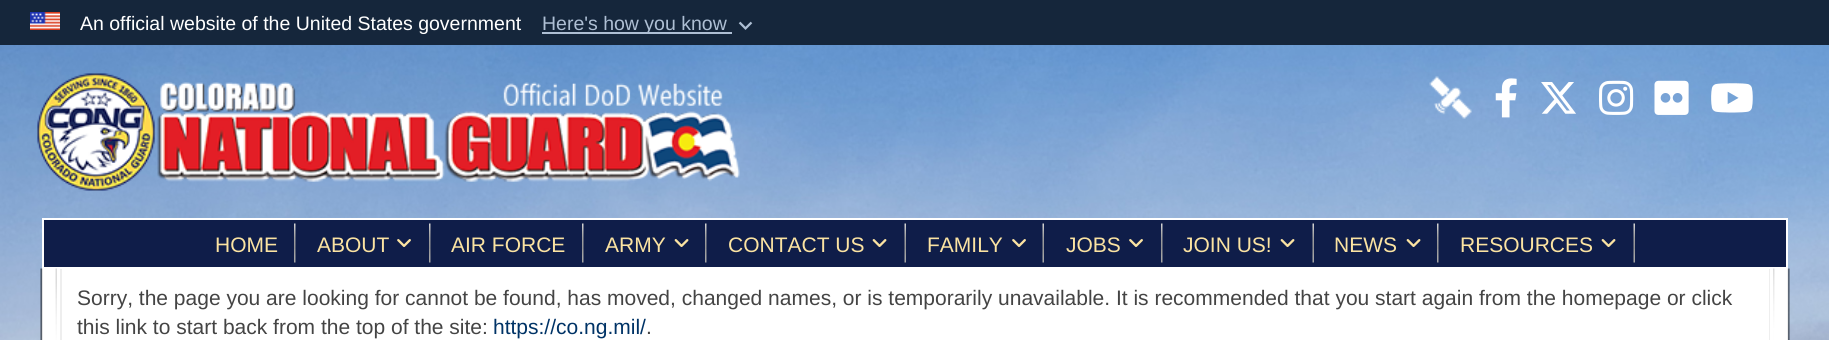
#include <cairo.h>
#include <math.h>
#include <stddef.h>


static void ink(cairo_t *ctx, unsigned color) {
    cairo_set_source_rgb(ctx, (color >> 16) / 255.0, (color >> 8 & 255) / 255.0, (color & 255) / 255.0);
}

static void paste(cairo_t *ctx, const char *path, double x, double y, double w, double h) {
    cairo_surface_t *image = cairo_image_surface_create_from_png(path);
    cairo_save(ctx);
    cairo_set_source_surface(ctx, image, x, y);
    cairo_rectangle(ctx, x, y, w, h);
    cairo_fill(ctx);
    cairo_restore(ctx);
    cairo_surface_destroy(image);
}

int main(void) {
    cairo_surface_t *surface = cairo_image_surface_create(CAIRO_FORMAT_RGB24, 1829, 340);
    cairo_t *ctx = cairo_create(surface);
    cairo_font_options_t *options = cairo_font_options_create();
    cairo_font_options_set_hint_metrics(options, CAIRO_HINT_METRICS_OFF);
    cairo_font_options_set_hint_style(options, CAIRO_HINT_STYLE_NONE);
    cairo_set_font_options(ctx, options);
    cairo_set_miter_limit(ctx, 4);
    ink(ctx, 0xFFFFFF);
    cairo_paint(ctx);
    paste(ctx, "media/1.png", 0, 45, 1829, 295);
    ink(ctx, 0x15263B);
    cairo_rectangle(ctx, 0, 0, 1829, 45);
    cairo_fill(ctx);
    paste(ctx, "media/2.png", 30, 12, 30, 18);
    cairo_select_font_face(ctx, "Liberation Sans", CAIRO_FONT_SLANT_NORMAL, CAIRO_FONT_WEIGHT_NORMAL);
    cairo_set_font_size(ctx, 19.5);
    ink(ctx, 0xFFFFFF);
    cairo_move_to(ctx, 80, 30);
    cairo_show_text(ctx, "An official website of the United States government");
    ink(ctx, 0xAEBFD4);
    cairo_rectangle(ctx, 542, 32, 190, 2);
    cairo_fill(ctx);
    cairo_move_to(ctx, 542, 30);
    cairo_show_text(ctx, "Here's how you know");
    paste(ctx, "media/3.png", 738, 21, 15, 9);
    paste(ctx, "media/4.png", 37, 73, 703, 118);
    paste(ctx, "media/5.png", 1429, 76, 43, 43);
    paste(ctx, "media/6.png", 1495, 78, 22, 40);
    paste(ctx, "media/7.png", 1541, 82, 35, 32);
    paste(ctx, "media/8.png", 1599, 80, 35, 35);
    paste(ctx, "media/9.png", 1654, 80, 35, 35);
    paste(ctx, "media/10.png", 1711, 83, 42, 30);
    ink(ctx, 0x0F1D49);
    cairo_rectangle(ctx, 43, 219, 1744, 49);
    cairo_fill_preserve(ctx);
    ink(ctx, 0xFFFFFF);
    cairo_stroke(ctx);
    paste(ctx, "media/11.png", 294, 223, 2, 40);
    cairo_set_font_size(ctx, 21);
    ink(ctx, 0xFBE3A2);
    cairo_move_to(ctx, 215, 252);
    cairo_show_text(ctx, "HOME");
    paste(ctx, "media/11.png", 429, 223, 2, 40);
    cairo_move_to(ctx, 317, 252);
    cairo_show_text(ctx, "ABOUT");
    paste(ctx, "media/12.png", 397, 239, 14, 8);
    paste(ctx, "media/11.png", 582, 223, 2, 40);
    cairo_move_to(ctx, 451, 252);
    cairo_show_text(ctx, "AIR FORCE");
    paste(ctx, "media/11.png", 705, 223, 2, 40);
    cairo_move_to(ctx, 605, 252);
    cairo_show_text(ctx, "ARMY");
    paste(ctx, "media/13.png", 674, 239, 15, 8);
    paste(ctx, "media/14.png", 904, 223, 2, 40);
    cairo_move_to(ctx, 728, 252);
    cairo_show_text(ctx, "CONTACT US");
    paste(ctx, "media/13.png", 872, 239, 15, 8);
    paste(ctx, "media/14.png", 1042, 223, 2, 40);
    cairo_move_to(ctx, 927, 252);
    cairo_show_text(ctx, "FAMILY");
    paste(ctx, "media/12.png", 1012, 239, 14, 8);
    paste(ctx, "media/11.png", 1161, 223, 2, 40);
    cairo_move_to(ctx, 1066, 252);
    cairo_show_text(ctx, "JOBS");
    paste(ctx, "media/12.png", 1129, 239, 14, 8);
    paste(ctx, "media/14.png", 1312, 223, 2, 40);
    cairo_move_to(ctx, 1183, 252);
    cairo_show_text(ctx, "JOIN US!");
    paste(ctx, "media/13.png", 1280, 239, 15, 8);
    paste(ctx, "media/11.png", 1437, 223, 2, 40);
    cairo_move_to(ctx, 1334, 252);
    cairo_show_text(ctx, "NEWS");
    paste(ctx, "media/13.png", 1406, 239, 15, 8);
    paste(ctx, "media/14.png", 1633, 223, 2, 40);
    cairo_move_to(ctx, 1460, 252);
    cairo_show_text(ctx, "RESOURCES");
    paste(ctx, "media/13.png", 1601, 239, 15, 8);
    ink(ctx, 0xFFFFFF);
    cairo_rectangle(ctx, 42, 269, 1746, 71);
    cairo_fill(ctx);
    paste(ctx, "media/15.png", 40, 268, 1750, 72);
    ink(ctx, 0xEEEEEE);
    cairo_rectangle(ctx, 1769, 269, 1, 71);
    cairo_fill(ctx);
    cairo_rectangle(ctx, 60, 269, 2, 71);
    cairo_fill(ctx);
    ink(ctx, 0x444444);
    cairo_move_to(ctx, 77, 305);
    cairo_show_text(ctx, "Sorry, the page you are looking for cannot be found, has moved, changed names, or is temporarily unavailable. It is recommended that you start again from the homepage or click");
    cairo_move_to(ctx, 77, 334);
    cairo_show_text(ctx, "this link to start back from the top of the site:");
    ink(ctx, 0x003366);
    cairo_move_to(ctx, 493, 334);
    cairo_show_text(ctx, "https://co.ng.mil/");
    ink(ctx, 0x444444);
    cairo_move_to(ctx, 646, 334);
    cairo_show_text(ctx, ".");
    cairo_surface_write_to_png(surface, "image.png");
    cairo_font_options_destroy(options);
    cairo_destroy(ctx);
    cairo_surface_destroy(surface);
    return 0;
}
